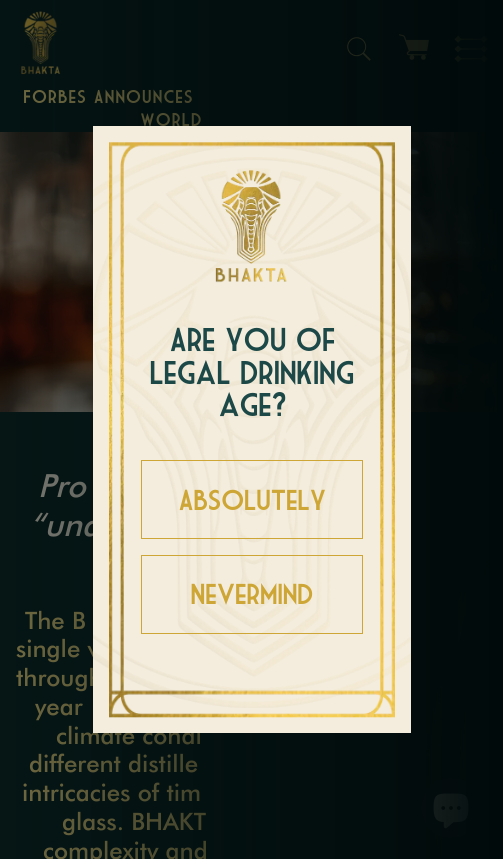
#include <cairo.h>
#include <math.h>
#include <stddef.h>

typedef struct { double x, y; const char *s; } line_t;

static void ink(cairo_t *ctx, unsigned color) {
    cairo_set_source_rgb(ctx, (color >> 16) / 255.0, (color >> 8 & 255) / 255.0, (color & 255) / 255.0);
}

static void write_spaced(cairo_t *ctx, double x, double y, const char *s, double letter, double word) {
    cairo_move_to(ctx, x, y);
    while (*s) {
        char ch[5] = {0};
        int n = 0;
        do ch[n++] = *s++; while ((*s & 0xC0) == 0x80);
        cairo_show_text(ctx, ch);
        cairo_rel_move_to(ctx, letter + word * (*ch == ' '), 0);
    }
}

static void paste(cairo_t *ctx, const char *path, double x, double y, double w, double h) {
    cairo_surface_t *image = cairo_image_surface_create_from_png(path);
    cairo_save(ctx);
    cairo_set_source_surface(ctx, image, x, y);
    cairo_rectangle(ctx, x, y, w, h);
    cairo_fill(ctx);
    cairo_restore(ctx);
    cairo_surface_destroy(image);
}

int main(void) {
    cairo_surface_t *surface = cairo_image_surface_create(CAIRO_FORMAT_RGB24, 503, 859);
    cairo_t *ctx = cairo_create(surface);
    cairo_font_options_t *options = cairo_font_options_create();
    cairo_font_options_set_hint_metrics(options, CAIRO_HINT_METRICS_OFF);
    cairo_font_options_set_hint_style(options, CAIRO_HINT_STYLE_NONE);
    cairo_set_font_options(ctx, options);
    cairo_set_miter_limit(ctx, 4);
    cairo_pattern_t *gradient;
    ink(ctx, 0x071D1C);
    cairo_paint(ctx);
    paste(ctx, "media/1.png", 21, 11, 40, 64);
    paste(ctx, "media/2.png", 347, 37, 24, 24);
    paste(ctx, "media/3.png", 399, 34, 30, 26);
    paste(ctx, "media/4.png", 454, 35, 34, 28);
    cairo_select_font_face(ctx, "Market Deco", CAIRO_FONT_SLANT_NORMAL, CAIRO_FONT_WEIGHT_NORMAL);
    cairo_set_font_size(ctx, 18);
    ink(ctx, 0xE1CC7A);
    write_spaced(ctx, 23, 103, "Forbes Announces", 0.6, 0);
    write_spaced(ctx, 140, 126, "World", 0.6, 0);
    paste(ctx, "media/5.png", 0, 132, 497, 280);
    paste(ctx, "media/6.png", 0, 412, 497, 447);
    cairo_select_font_face(ctx, "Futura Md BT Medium", CAIRO_FONT_SLANT_ITALIC, CAIRO_FONT_WEIGHT_NORMAL);
    cairo_set_font_size(ctx, 32);
    ink(ctx, 0xF4EDDD);
    cairo_move_to(ctx, 38, 497);
    cairo_show_text(ctx, "Pro");
    cairo_move_to(ctx, 30, 536);
    cairo_show_text(ctx, "“und");
    cairo_select_font_face(ctx, "Futura Md BT Medium", CAIRO_FONT_SLANT_NORMAL, CAIRO_FONT_WEIGHT_NORMAL);
    cairo_set_font_size(ctx, 24);
    ink(ctx, 0xE1CC7A);
    {
        static const line_t items[] = {
            {25, 629, "The B"},
            {16, 657, "single v"},
            {16, 686, "through"},
            {35, 715, "year"},
            {56, 744, "climate condi"},
            {29, 772, "different distille"},
            {22, 801, "intricacies of tim"},
            {62, 830, "glass. BHAKT"},
            {43, 859, "complexity and"},
        };
        for (size_t i = 0; i < sizeof items / sizeof *items; i++) {
            cairo_move_to(ctx, items[i].x, items[i].y);
            cairo_show_text(ctx, items[i].s);
        }
    }
    ink(ctx, 0x202A36);
    cairo_new_path(ctx);
    cairo_arc(ctx, 451, 808, 30, 0, 2 * M_PI);
    cairo_fill(ctx);
    paste(ctx, "media/10.png", 433, 793, 36, 36);
    gradient = cairo_pattern_create_linear(0, 430, 503, 430);
    cairo_pattern_add_color_stop_rgba(gradient, 0, 0.004, 0.039, 0.039, 0.5);
    cairo_pattern_add_color_stop_rgba(gradient, 1, 0.004, 0.039, 0.039, 1);
    cairo_set_source(ctx, gradient);
    cairo_pattern_destroy(gradient);
    cairo_rectangle(ctx, 0, 0, 503, 859);
    cairo_fill(ctx);
    ink(ctx, 0xF4EDDD);
    cairo_rectangle(ctx, 93, 126, 318, 607);
    cairo_fill(ctx);
    paste(ctx, "media/7.png", 93, 140, 318, 568);
    paste(ctx, "media/9.png", 215, 170, 72, 113);
    cairo_select_font_face(ctx, "Market Deco", CAIRO_FONT_SLANT_NORMAL, CAIRO_FONT_WEIGHT_NORMAL);
    cairo_set_font_size(ctx, 32);
    ink(ctx, 0x1C4847);
    {
        static const line_t items[] = {
            {169, 351, "Are you of"},
            {149, 384, "legal drinking"},
            {218, 416, "age?"},
        };
        for (size_t i = 0; i < sizeof items / sizeof *items; i++) {
            write_spaced(ctx, items[i].x, items[i].y, items[i].s, -1.25, 0);
        }
    }
    paste(ctx, "media/8.png", 109, 142, 286, 576);
    cairo_rectangle(ctx, 141.5, 460.5, 221, 78);
    ink(ctx, 0xCDA636);
    cairo_set_line_width(ctx, 1);
    cairo_stroke(ctx);
    cairo_set_font_size(ctx, 28);
    write_spaced(ctx, 178, 510, "Absolutely", -1.1, 0);
    cairo_rectangle(ctx, 141.5, 555.5, 221, 78);
    cairo_stroke(ctx);
    write_spaced(ctx, 190, 604, "Nevermind", -1.1, 0);
    cairo_surface_write_to_png(surface, "image.png");
    cairo_font_options_destroy(options);
    cairo_destroy(ctx);
    cairo_surface_destroy(surface);
    return 0;
}
